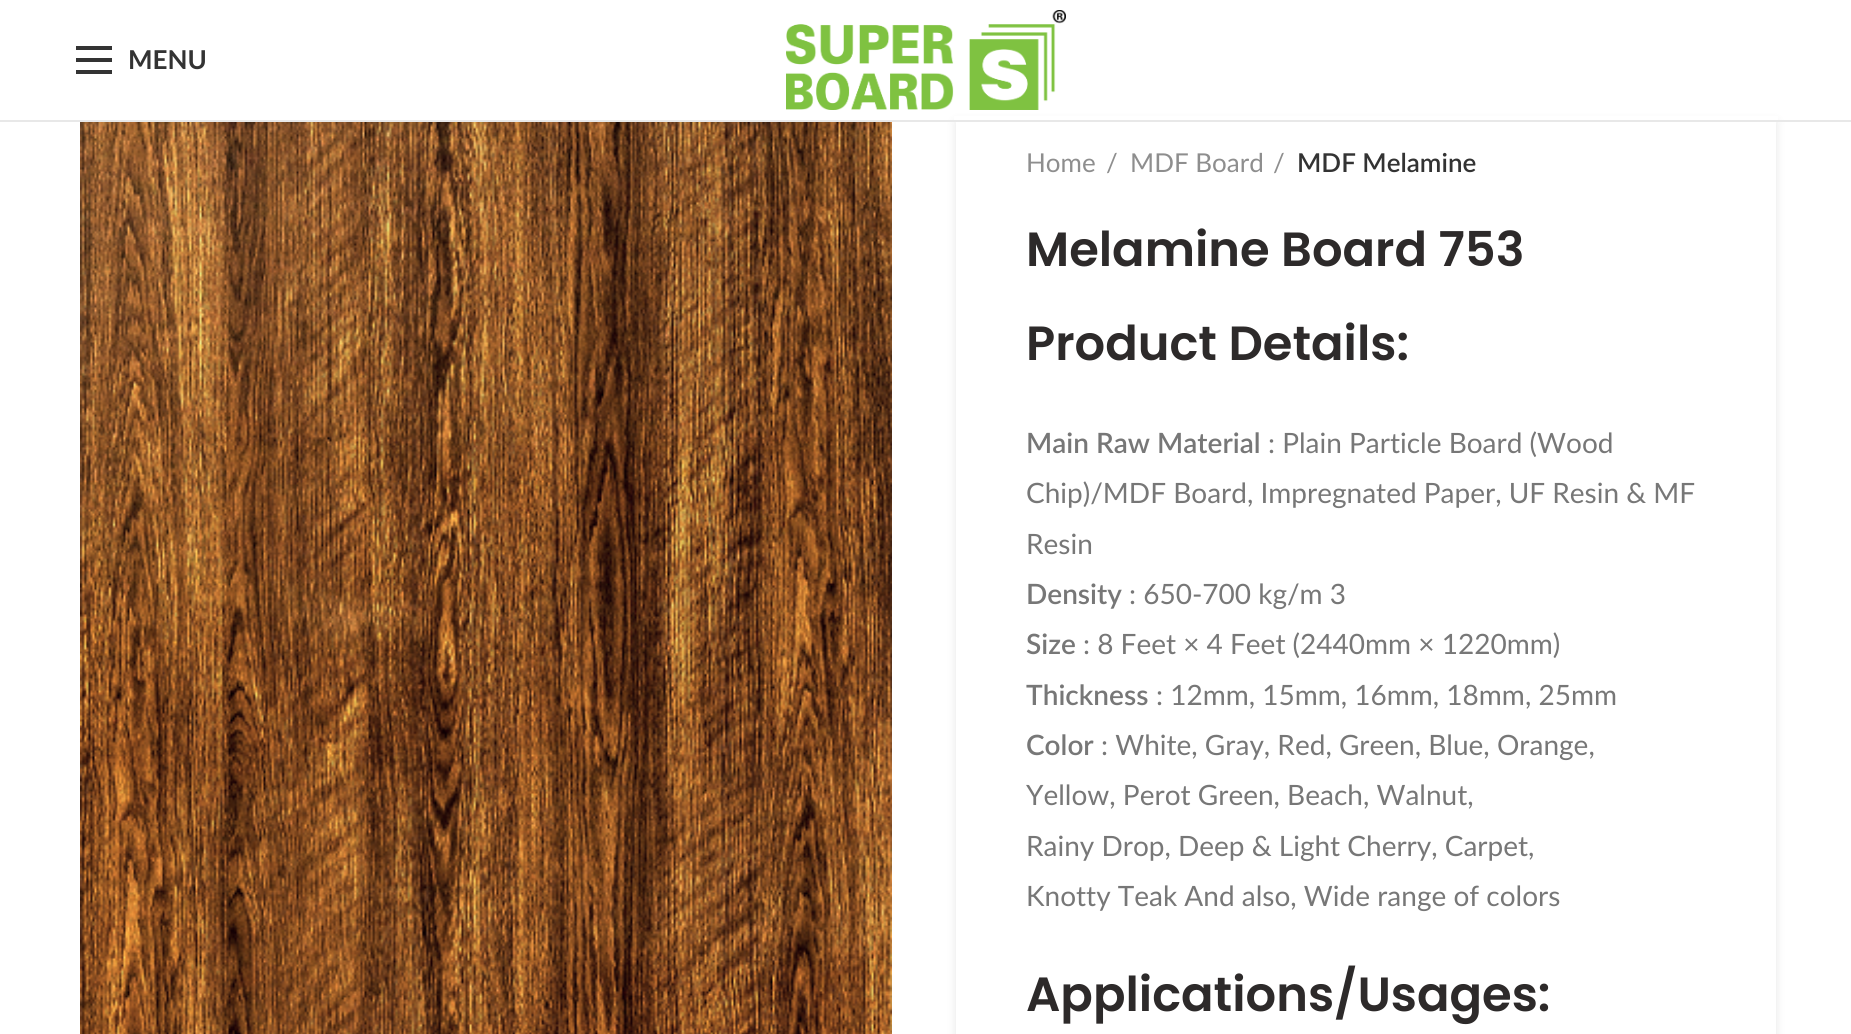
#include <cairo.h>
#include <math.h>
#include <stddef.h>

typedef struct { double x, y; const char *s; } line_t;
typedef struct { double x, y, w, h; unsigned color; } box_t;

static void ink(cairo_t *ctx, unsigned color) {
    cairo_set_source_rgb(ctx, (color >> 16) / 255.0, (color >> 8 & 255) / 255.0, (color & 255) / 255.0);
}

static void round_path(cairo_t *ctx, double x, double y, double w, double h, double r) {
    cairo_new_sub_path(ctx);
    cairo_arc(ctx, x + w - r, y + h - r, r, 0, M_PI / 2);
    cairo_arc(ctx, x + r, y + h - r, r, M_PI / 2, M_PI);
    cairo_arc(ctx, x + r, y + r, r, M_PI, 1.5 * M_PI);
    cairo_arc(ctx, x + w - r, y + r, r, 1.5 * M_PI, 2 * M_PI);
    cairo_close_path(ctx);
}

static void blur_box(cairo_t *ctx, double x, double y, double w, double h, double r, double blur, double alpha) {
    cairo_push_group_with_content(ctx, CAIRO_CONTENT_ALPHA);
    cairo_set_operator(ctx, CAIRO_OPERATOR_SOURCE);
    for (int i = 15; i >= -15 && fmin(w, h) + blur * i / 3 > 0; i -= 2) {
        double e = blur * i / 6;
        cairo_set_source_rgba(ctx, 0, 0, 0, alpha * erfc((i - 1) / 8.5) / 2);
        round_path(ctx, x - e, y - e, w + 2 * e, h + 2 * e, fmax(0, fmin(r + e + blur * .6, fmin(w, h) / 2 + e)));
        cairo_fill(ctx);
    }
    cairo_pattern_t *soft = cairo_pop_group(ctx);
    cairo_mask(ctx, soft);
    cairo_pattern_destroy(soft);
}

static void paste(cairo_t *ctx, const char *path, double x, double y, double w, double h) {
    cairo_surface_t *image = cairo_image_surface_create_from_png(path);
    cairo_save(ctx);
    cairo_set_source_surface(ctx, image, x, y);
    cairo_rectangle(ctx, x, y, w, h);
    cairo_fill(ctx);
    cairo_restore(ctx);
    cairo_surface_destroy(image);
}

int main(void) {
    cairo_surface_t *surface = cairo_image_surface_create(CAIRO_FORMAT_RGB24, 1851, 1034);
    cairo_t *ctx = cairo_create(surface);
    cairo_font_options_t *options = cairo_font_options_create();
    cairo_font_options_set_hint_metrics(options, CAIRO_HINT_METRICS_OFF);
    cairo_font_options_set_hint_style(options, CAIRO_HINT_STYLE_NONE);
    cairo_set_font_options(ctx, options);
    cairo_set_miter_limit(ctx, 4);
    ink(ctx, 0xFFFFFF);
    cairo_paint(ctx);
    cairo_save(ctx);
    cairo_set_fill_rule(ctx, CAIRO_FILL_RULE_EVEN_ODD);
    cairo_new_path(ctx);
    cairo_move_to(ctx, 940, 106);
    cairo_line_to(ctx, 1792, 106);
    cairo_line_to(ctx, 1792, 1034);
    cairo_line_to(ctx, 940, 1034);
    cairo_close_path(ctx);
    cairo_move_to(ctx, 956, 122);
    cairo_line_to(ctx, 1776, 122);
    cairo_line_to(ctx, 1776, 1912);
    cairo_line_to(ctx, 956, 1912);
    cairo_close_path(ctx);
    cairo_clip(ctx);
    ink(ctx, 0x000000);
    blur_box(ctx, 956, 122, 820, 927, 0, 5, 0.1);
    cairo_restore(ctx);
    {
        static const box_t items[] = {
            {954, 116, 824, 4, 0xFFFFFF},
            {0, 120, 1851, 2, 0xE8E8E8},
            {76, 58, 36, 4, 0x333333},
            {76, 46, 36, 4, 0x333333},
            {76, 70, 36, 4, 0x333333},
        };
        for (size_t i = 0; i < sizeof items / sizeof *items; i++) {
            ink(ctx, items[i].color);
            cairo_rectangle(ctx, items[i].x, items[i].y, items[i].w, items[i].h);
            cairo_fill(ctx);
        }
    }
    cairo_select_font_face(ctx, "Lato", CAIRO_FONT_SLANT_NORMAL, CAIRO_FONT_WEIGHT_BOLD);
    cairo_set_font_size(ctx, 26);
    cairo_move_to(ctx, 128, 69);
    cairo_show_text(ctx, "MENU");
    paste(ctx, "media/1.png", 786, 10, 280, 100);
    paste(ctx, "media/2.png", 80, 122, 812, 912);
    cairo_select_font_face(ctx, "Lato", CAIRO_FONT_SLANT_NORMAL, CAIRO_FONT_WEIGHT_NORMAL);
    ink(ctx, 0x8E8E8E);
    {
        static const line_t items[] = {
            {1026, 172, "Home"},
            {1106, 172, "/"},
            {1130, 172, "MDF Board"},
            {1273, 172, "/"},
        };
        for (size_t i = 0; i < sizeof items / sizeof *items; i++) {
            cairo_move_to(ctx, items[i].x, items[i].y);
            cairo_show_text(ctx, items[i].s);
        }
    }
    cairo_select_font_face(ctx, "Lato SemiBold", CAIRO_FONT_SLANT_NORMAL, CAIRO_FONT_WEIGHT_NORMAL);
    ink(ctx, 0x333333);
    cairo_move_to(ctx, 1297, 172);
    cairo_show_text(ctx, "MDF Melamine");
    cairo_select_font_face(ctx, "Poppins SemiBold", CAIRO_FONT_SLANT_NORMAL, CAIRO_FONT_WEIGHT_NORMAL);
    cairo_set_font_size(ctx, 48);
    ink(ctx, 0x2D2A2A);
    cairo_move_to(ctx, 1026, 266);
    cairo_show_text(ctx, "Melamine Board 753");
    cairo_move_to(ctx, 1026, 360);
    cairo_show_text(ctx, "Product Details:");
    cairo_select_font_face(ctx, "Lato SemiBold", CAIRO_FONT_SLANT_NORMAL, CAIRO_FONT_WEIGHT_NORMAL);
    cairo_set_font_size(ctx, 28);
    ink(ctx, 0x777777);
    cairo_move_to(ctx, 1026, 453);
    cairo_show_text(ctx, "Main Raw Material");
    cairo_select_font_face(ctx, "Lato", CAIRO_FONT_SLANT_NORMAL, CAIRO_FONT_WEIGHT_NORMAL);
    {
        static const line_t items[] = {
            {1268, 453, ": Plain Particle Board (Wood"},
            {1026, 503, "Chip)/MDF Board, Impregnated Paper, UF Resin & MF"},
            {1026, 554, "Resin"},
        };
        for (size_t i = 0; i < sizeof items / sizeof *items; i++) {
            cairo_move_to(ctx, items[i].x, items[i].y);
            cairo_show_text(ctx, items[i].s);
        }
    }
    cairo_select_font_face(ctx, "Lato SemiBold", CAIRO_FONT_SLANT_NORMAL, CAIRO_FONT_WEIGHT_NORMAL);
    cairo_move_to(ctx, 1026, 604);
    cairo_show_text(ctx, "Density");
    cairo_select_font_face(ctx, "Lato", CAIRO_FONT_SLANT_NORMAL, CAIRO_FONT_WEIGHT_NORMAL);
    cairo_move_to(ctx, 1129, 604);
    cairo_show_text(ctx, ": 650-700 kg/m 3");
    cairo_select_font_face(ctx, "Lato SemiBold", CAIRO_FONT_SLANT_NORMAL, CAIRO_FONT_WEIGHT_NORMAL);
    cairo_move_to(ctx, 1026, 654);
    cairo_show_text(ctx, "Size");
    cairo_select_font_face(ctx, "Lato", CAIRO_FONT_SLANT_NORMAL, CAIRO_FONT_WEIGHT_NORMAL);
    cairo_move_to(ctx, 1083, 654);
    cairo_show_text(ctx, ": 8 Feet × 4 Feet (2440mm × 1220mm)");
    cairo_select_font_face(ctx, "Lato SemiBold", CAIRO_FONT_SLANT_NORMAL, CAIRO_FONT_WEIGHT_NORMAL);
    cairo_move_to(ctx, 1026, 705);
    cairo_show_text(ctx, "Thickness");
    cairo_select_font_face(ctx, "Lato", CAIRO_FONT_SLANT_NORMAL, CAIRO_FONT_WEIGHT_NORMAL);
    cairo_move_to(ctx, 1156, 705);
    cairo_show_text(ctx, ": 12mm, 15mm, 16mm, 18mm, 25mm");
    cairo_select_font_face(ctx, "Lato SemiBold", CAIRO_FONT_SLANT_NORMAL, CAIRO_FONT_WEIGHT_NORMAL);
    cairo_move_to(ctx, 1026, 755);
    cairo_show_text(ctx, "Color");
    cairo_select_font_face(ctx, "Lato", CAIRO_FONT_SLANT_NORMAL, CAIRO_FONT_WEIGHT_NORMAL);
    {
        static const line_t items[] = {
            {1101, 755, ": White, Gray, Red, Green, Blue, Orange,"},
            {1026, 805, "Yellow, Perot Green, Beach, Walnut,"},
            {1026, 856, "Rainy Drop, Deep & Light Cherry, Carpet,"},
            {1026, 906, "Knotty Teak And also, Wide range of colors"},
        };
        for (size_t i = 0; i < sizeof items / sizeof *items; i++) {
            cairo_move_to(ctx, items[i].x, items[i].y);
            cairo_show_text(ctx, items[i].s);
        }
    }
    cairo_select_font_face(ctx, "Poppins SemiBold", CAIRO_FONT_SLANT_NORMAL, CAIRO_FONT_WEIGHT_NORMAL);
    cairo_set_font_size(ctx, 48);
    ink(ctx, 0x2D2A2A);
    cairo_move_to(ctx, 1026, 1011);
    cairo_show_text(ctx, "Applications/Usages:");
    cairo_surface_write_to_png(surface, "image.png");
    cairo_font_options_destroy(options);
    cairo_destroy(ctx);
    cairo_surface_destroy(surface);
    return 0;
}
